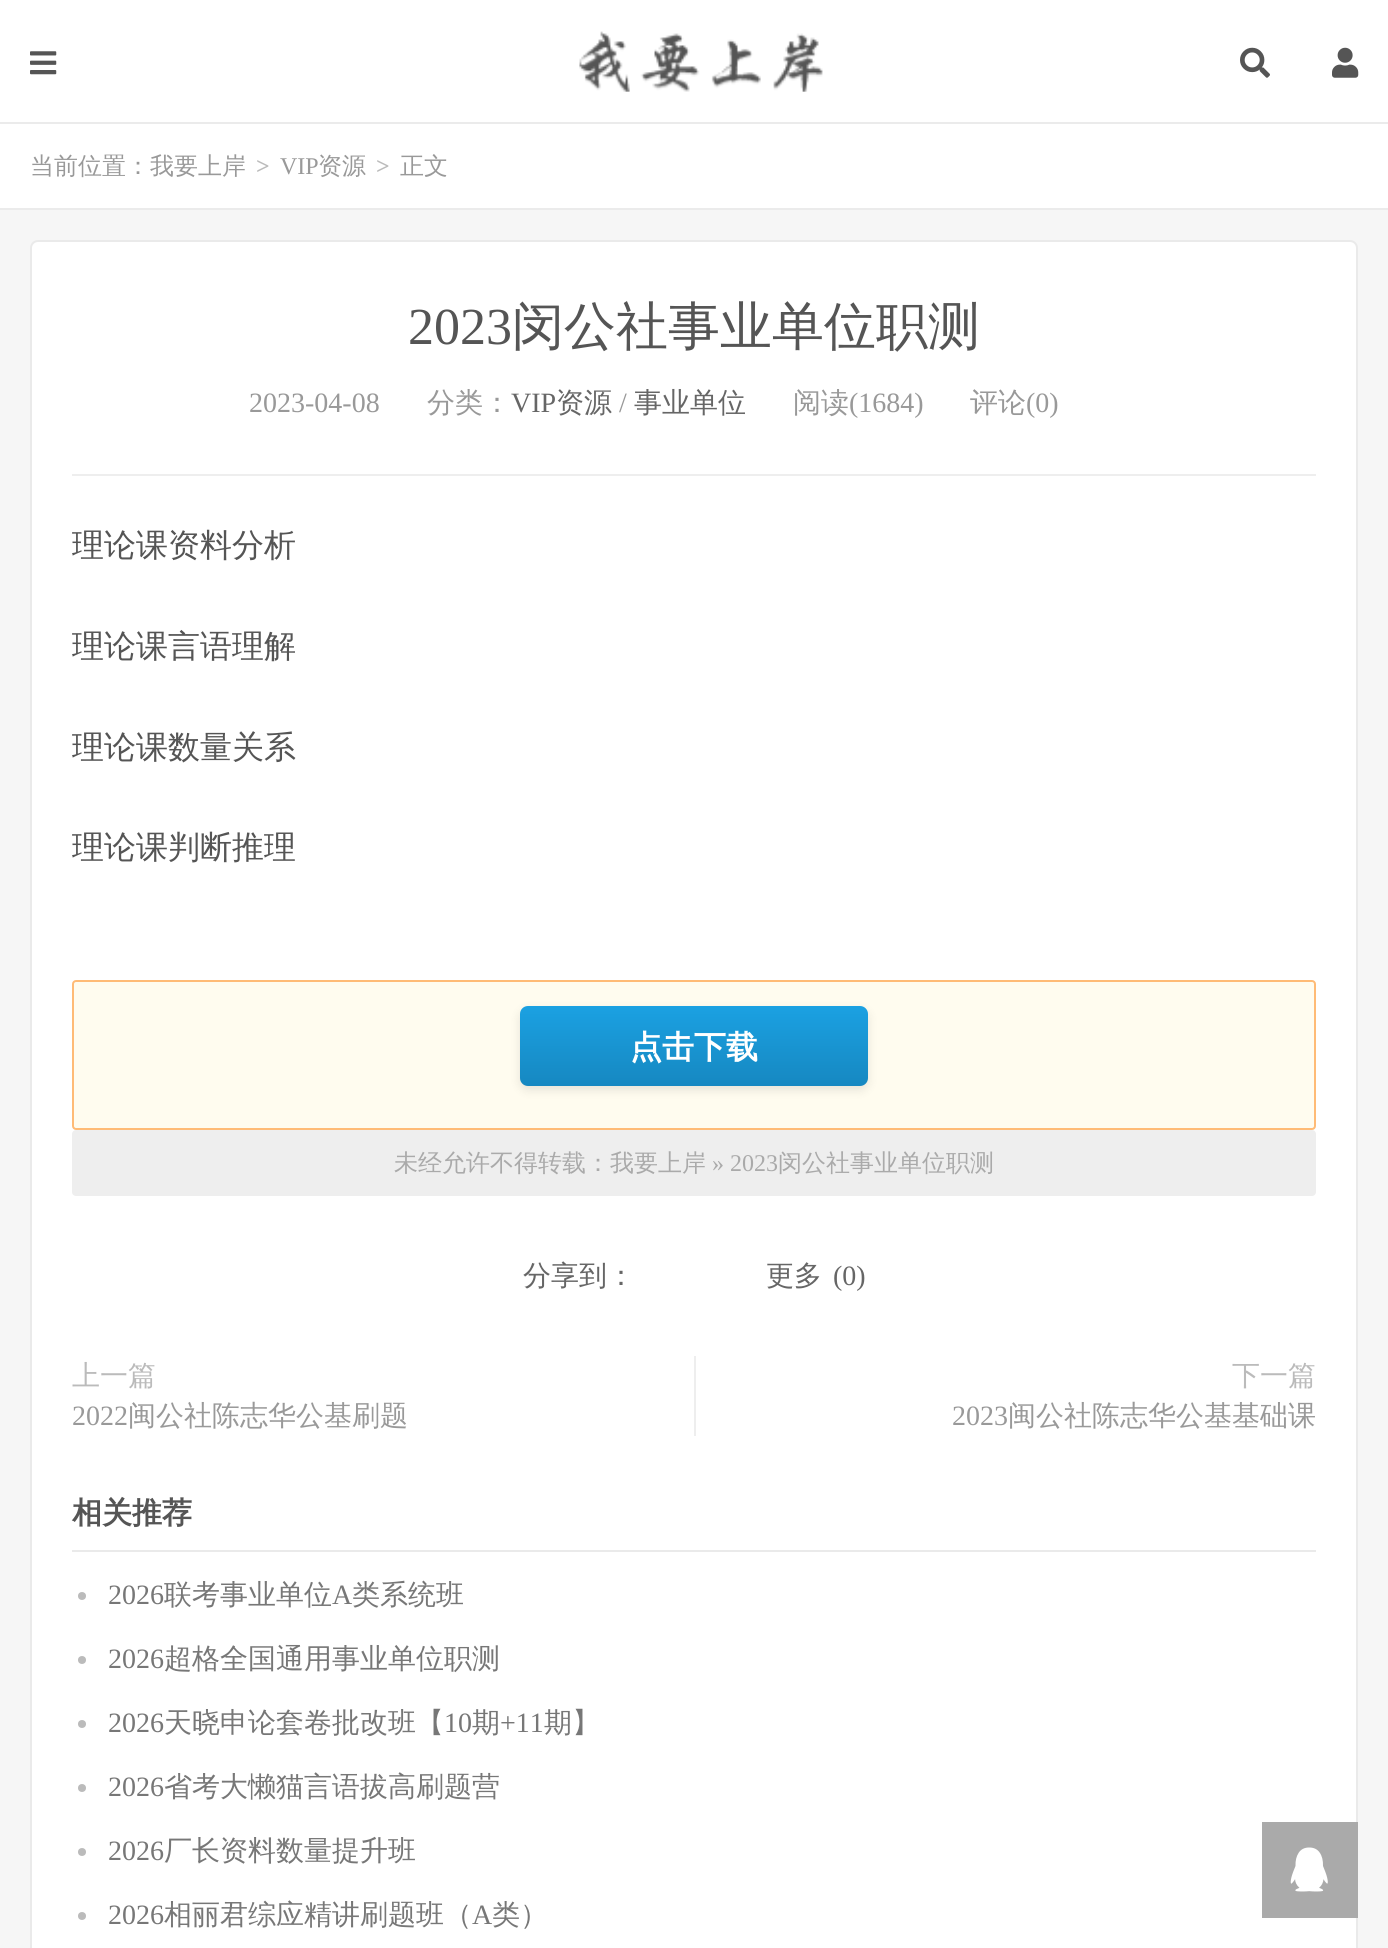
#include <cairo.h>
#include <math.h>
#include <stddef.h>

typedef struct { double x, y; const char *s; } line_t;

static void ink(cairo_t *ctx, unsigned color) {
    cairo_set_source_rgb(ctx, (color >> 16) / 255.0, (color >> 8 & 255) / 255.0, (color & 255) / 255.0);
}

static void round_path(cairo_t *ctx, double x, double y, double w, double h, double r) {
    cairo_new_sub_path(ctx);
    cairo_arc(ctx, x + w - r, y + h - r, r, 0, M_PI / 2);
    cairo_arc(ctx, x + r, y + h - r, r, M_PI / 2, M_PI);
    cairo_arc(ctx, x + r, y + r, r, M_PI, 1.5 * M_PI);
    cairo_arc(ctx, x + w - r, y + r, r, 1.5 * M_PI, 2 * M_PI);
    cairo_close_path(ctx);
}

static void blur_box(cairo_t *ctx, double x, double y, double w, double h, double r, double blur, double alpha) {
    cairo_push_group_with_content(ctx, CAIRO_CONTENT_ALPHA);
    cairo_set_operator(ctx, CAIRO_OPERATOR_SOURCE);
    for (int i = 15; i >= -15 && fmin(w, h) + blur * i / 3 > 0; i -= 2) {
        double e = blur * i / 6;
        cairo_set_source_rgba(ctx, 0, 0, 0, alpha * erfc((i - 1) / 8.5) / 2);
        round_path(ctx, x - e, y - e, w + 2 * e, h + 2 * e, fmax(0, fmin(r + e + blur * .6, fmin(w, h) / 2 + e)));
        cairo_fill(ctx);
    }
    cairo_pattern_t *soft = cairo_pop_group(ctx);
    cairo_mask(ctx, soft);
    cairo_pattern_destroy(soft);
}

static void paste(cairo_t *ctx, const char *path, double x, double y, double w, double h) {
    cairo_surface_t *image = cairo_image_surface_create_from_png(path);
    cairo_save(ctx);
    cairo_set_source_surface(ctx, image, x, y);
    cairo_rectangle(ctx, x, y, w, h);
    cairo_fill(ctx);
    cairo_restore(ctx);
    cairo_surface_destroy(image);
}

int main(void) {
    cairo_surface_t *surface = cairo_image_surface_create(CAIRO_FORMAT_RGB24, 1388, 1948);
    cairo_t *ctx = cairo_create(surface);
    cairo_font_options_t *options = cairo_font_options_create();
    cairo_font_options_set_hint_metrics(options, CAIRO_HINT_METRICS_OFF);
    cairo_font_options_set_hint_style(options, CAIRO_HINT_STYLE_NONE);
    cairo_set_font_options(ctx, options);
    cairo_set_miter_limit(ctx, 4);
    cairo_pattern_t *gradient;
    ink(ctx, 0xF6F6F6);
    cairo_paint(ctx);
    ink(ctx, 0xFFFFFF);
    cairo_rectangle(ctx, 0, 0, 1388, 122);
    cairo_fill(ctx);
    ink(ctx, 0xEBEBEB);
    cairo_rectangle(ctx, 0, 122, 1388, 2);
    cairo_fill(ctx);
    paste(ctx, "media/1.png", 30, 51, 27, 24);
    paste(ctx, "media/2.png", 579, 31, 244, 61);
    paste(ctx, "media/3.png", 1240, 47, 30, 31);
    paste(ctx, "media/4.png", 1332, 47, 27, 31);
    ink(ctx, 0xFFFFFF);
    cairo_rectangle(ctx, 0, 124, 1388, 84);
    cairo_fill(ctx);
    ink(ctx, 0xEBEBEB);
    cairo_rectangle(ctx, 0, 208, 1388, 2);
    cairo_fill(ctx);
    cairo_select_font_face(ctx, "WenQuanYi Zen Hei Medium", CAIRO_FONT_SLANT_NORMAL, CAIRO_FONT_WEIGHT_NORMAL);
    cairo_set_font_size(ctx, 24);
    ink(ctx, 0x999999);
    cairo_move_to(ctx, 30, 174);
    cairo_show_text(ctx, "当前位置：我要上岸");
    cairo_select_font_face(ctx, "Liberation Serif", CAIRO_FONT_SLANT_NORMAL, CAIRO_FONT_WEIGHT_BOLD);
    ink(ctx, 0xBBBBBB);
    cairo_move_to(ctx, 256, 174);
    cairo_show_text(ctx, ">");
    cairo_select_font_face(ctx, "Liberation Serif", CAIRO_FONT_SLANT_NORMAL, CAIRO_FONT_WEIGHT_NORMAL);
    ink(ctx, 0x999999);
    cairo_move_to(ctx, 280, 174);
    cairo_show_text(ctx, "VIP");
    cairo_select_font_face(ctx, "WenQuanYi Zen Hei Medium", CAIRO_FONT_SLANT_NORMAL, CAIRO_FONT_WEIGHT_NORMAL);
    cairo_move_to(ctx, 318, 174);
    cairo_show_text(ctx, "资源");
    cairo_select_font_face(ctx, "Liberation Serif", CAIRO_FONT_SLANT_NORMAL, CAIRO_FONT_WEIGHT_BOLD);
    ink(ctx, 0xBBBBBB);
    cairo_move_to(ctx, 376, 174);
    cairo_show_text(ctx, ">");
    cairo_select_font_face(ctx, "WenQuanYi Zen Hei Medium", CAIRO_FONT_SLANT_NORMAL, CAIRO_FONT_WEIGHT_NORMAL);
    ink(ctx, 0x999999);
    cairo_move_to(ctx, 400, 174);
    cairo_show_text(ctx, "正文");
    ink(ctx, 0xFFFFFF);
    round_path(ctx, 31, 241, 1326, 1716, 7);
    cairo_fill_preserve(ctx);
    ink(ctx, 0xEAEAEA);
    cairo_stroke(ctx);
    ink(ctx, 0xEEEEEE);
    cairo_rectangle(ctx, 72, 474, 1244, 2);
    cairo_fill(ctx);
    cairo_select_font_face(ctx, "Liberation Serif", CAIRO_FONT_SLANT_NORMAL, CAIRO_FONT_WEIGHT_NORMAL);
    cairo_set_font_size(ctx, 52);
    ink(ctx, 0x555555);
    cairo_move_to(ctx, 408, 344);
    cairo_show_text(ctx, "2023");
    cairo_select_font_face(ctx, "WenQuanYi Zen Hei Medium", CAIRO_FONT_SLANT_NORMAL, CAIRO_FONT_WEIGHT_NORMAL);
    cairo_move_to(ctx, 512, 344);
    cairo_show_text(ctx, "闵公社事业单位职测");
    cairo_select_font_face(ctx, "Liberation Serif", CAIRO_FONT_SLANT_NORMAL, CAIRO_FONT_WEIGHT_NORMAL);
    cairo_set_font_size(ctx, 28);
    ink(ctx, 0x999999);
    cairo_move_to(ctx, 249, 412);
    cairo_show_text(ctx, "2023-04-08");
    cairo_select_font_face(ctx, "WenQuanYi Zen Hei Medium", CAIRO_FONT_SLANT_NORMAL, CAIRO_FONT_WEIGHT_NORMAL);
    cairo_move_to(ctx, 427, 412);
    cairo_show_text(ctx, "分类：");
    cairo_select_font_face(ctx, "Liberation Serif", CAIRO_FONT_SLANT_NORMAL, CAIRO_FONT_WEIGHT_NORMAL);
    ink(ctx, 0x666666);
    cairo_move_to(ctx, 511, 412);
    cairo_show_text(ctx, "VIP");
    cairo_select_font_face(ctx, "WenQuanYi Zen Hei Medium", CAIRO_FONT_SLANT_NORMAL, CAIRO_FONT_WEIGHT_NORMAL);
    cairo_move_to(ctx, 556, 412);
    cairo_show_text(ctx, "资源");
    cairo_select_font_face(ctx, "Liberation Serif", CAIRO_FONT_SLANT_NORMAL, CAIRO_FONT_WEIGHT_NORMAL);
    ink(ctx, 0x999999);
    cairo_move_to(ctx, 619, 412);
    cairo_show_text(ctx, "/");
    cairo_select_font_face(ctx, "WenQuanYi Zen Hei Medium", CAIRO_FONT_SLANT_NORMAL, CAIRO_FONT_WEIGHT_NORMAL);
    ink(ctx, 0x666666);
    cairo_move_to(ctx, 634, 412);
    cairo_show_text(ctx, "事业单位");
    ink(ctx, 0x999999);
    cairo_move_to(ctx, 793, 412);
    cairo_show_text(ctx, "阅读");
    cairo_select_font_face(ctx, "Liberation Serif", CAIRO_FONT_SLANT_NORMAL, CAIRO_FONT_WEIGHT_NORMAL);
    cairo_move_to(ctx, 849, 412);
    cairo_show_text(ctx, "(1684)");
    cairo_select_font_face(ctx, "WenQuanYi Zen Hei Medium", CAIRO_FONT_SLANT_NORMAL, CAIRO_FONT_WEIGHT_NORMAL);
    cairo_move_to(ctx, 970, 412);
    cairo_show_text(ctx, "评论");
    cairo_select_font_face(ctx, "Liberation Serif", CAIRO_FONT_SLANT_NORMAL, CAIRO_FONT_WEIGHT_NORMAL);
    cairo_move_to(ctx, 1026, 412);
    cairo_show_text(ctx, "(0)");
    cairo_select_font_face(ctx, "WenQuanYi Zen Hei Medium", CAIRO_FONT_SLANT_NORMAL, CAIRO_FONT_WEIGHT_NORMAL);
    cairo_set_font_size(ctx, 32);
    ink(ctx, 0x555555);
    {
        static const line_t items[] = {
            {72, 556, "理论课资料分析"},
            {72, 657, "理论课言语理解"},
            {72, 758, "理论课数量关系"},
            {72, 858, "理论课判断推理"},
        };
        for (size_t i = 0; i < sizeof items / sizeof *items; i++) {
            cairo_move_to(ctx, items[i].x, items[i].y);
            cairo_show_text(ctx, items[i].s);
        }
    }
    ink(ctx, 0xFFFCEF);
    round_path(ctx, 73, 981, 1242, 148, 3);
    cairo_fill_preserve(ctx);
    ink(ctx, 0xFFBB76);
    cairo_stroke(ctx);
    ink(ctx, 0x000000);
    blur_box(ctx, 520, 1010, 348, 80, 8, 5, 0.1);
    gradient = cairo_pattern_create_linear(694, 1006, 694, 1086);
    cairo_pattern_add_color_stop_rgba(gradient, 0, 0.106, 0.631, 0.886, 1);
    cairo_pattern_add_color_stop_rgba(gradient, 1, 0.086, 0.533, 0.757, 1);
    cairo_set_source(ctx, gradient);
    cairo_pattern_destroy(gradient);
    round_path(ctx, 520, 1006, 348, 80, 8);
    cairo_fill(ctx);
    cairo_select_font_face(ctx, "WenQuanYi Zen Hei", CAIRO_FONT_SLANT_NORMAL, CAIRO_FONT_WEIGHT_BOLD);
    ink(ctx, 0xFFFFFF);
    cairo_move_to(ctx, 630, 1058);
    cairo_show_text(ctx, "点击下载");
    ink(ctx, 0xEEEEEE);
    round_path(ctx, 72, 1130, 1244, 66, 4);
    cairo_fill(ctx);
    cairo_select_font_face(ctx, "WenQuanYi Zen Hei Medium", CAIRO_FONT_SLANT_NORMAL, CAIRO_FONT_WEIGHT_NORMAL);
    cairo_set_font_size(ctx, 24);
    ink(ctx, 0xAAAAAA);
    cairo_move_to(ctx, 394, 1171);
    cairo_show_text(ctx, "未经允许不得转载：我要上岸");
    cairo_select_font_face(ctx, "Liberation Serif", CAIRO_FONT_SLANT_NORMAL, CAIRO_FONT_WEIGHT_NORMAL);
    cairo_move_to(ctx, 712, 1171);
    cairo_show_text(ctx, "» 2023");
    cairo_select_font_face(ctx, "WenQuanYi Zen Hei Medium", CAIRO_FONT_SLANT_NORMAL, CAIRO_FONT_WEIGHT_NORMAL);
    cairo_move_to(ctx, 778, 1171);
    cairo_show_text(ctx, "闵公社事业单位职测");
    cairo_set_font_size(ctx, 28);
    ink(ctx, 0x666666);
    cairo_move_to(ctx, 523, 1285);
    cairo_show_text(ctx, "分享到：");
    cairo_move_to(ctx, 766, 1285);
    cairo_show_text(ctx, "更多");
    cairo_select_font_face(ctx, "Liberation Serif", CAIRO_FONT_SLANT_NORMAL, CAIRO_FONT_WEIGHT_NORMAL);
    cairo_move_to(ctx, 833, 1285);
    cairo_show_text(ctx, "(0)");
    cairo_select_font_face(ctx, "WenQuanYi Zen Hei Medium", CAIRO_FONT_SLANT_NORMAL, CAIRO_FONT_WEIGHT_NORMAL);
    ink(ctx, 0xBBBBBB);
    cairo_move_to(ctx, 72, 1385);
    cairo_show_text(ctx, "上一篇");
    cairo_select_font_face(ctx, "Liberation Serif", CAIRO_FONT_SLANT_NORMAL, CAIRO_FONT_WEIGHT_NORMAL);
    ink(ctx, 0x999999);
    cairo_move_to(ctx, 72, 1425);
    cairo_show_text(ctx, "2022");
    cairo_select_font_face(ctx, "WenQuanYi Zen Hei Medium", CAIRO_FONT_SLANT_NORMAL, CAIRO_FONT_WEIGHT_NORMAL);
    cairo_move_to(ctx, 128, 1425);
    cairo_show_text(ctx, "闽公社陈志华公基刷题");
    ink(ctx, 0xEEEEEE);
    cairo_rectangle(ctx, 694, 1356, 2, 80);
    cairo_fill(ctx);
    ink(ctx, 0xBBBBBB);
    cairo_move_to(ctx, 1232, 1385);
    cairo_show_text(ctx, "下一篇");
    cairo_select_font_face(ctx, "Liberation Serif", CAIRO_FONT_SLANT_NORMAL, CAIRO_FONT_WEIGHT_NORMAL);
    ink(ctx, 0x999999);
    cairo_move_to(ctx, 952, 1425);
    cairo_show_text(ctx, "2023");
    cairo_select_font_face(ctx, "WenQuanYi Zen Hei Medium", CAIRO_FONT_SLANT_NORMAL, CAIRO_FONT_WEIGHT_NORMAL);
    cairo_move_to(ctx, 1008, 1425);
    cairo_show_text(ctx, "闽公社陈志华公基基础课");
    ink(ctx, 0xEAEAEA);
    cairo_rectangle(ctx, 72, 1550, 1244, 2);
    cairo_fill(ctx);
    cairo_select_font_face(ctx, "WenQuanYi Zen Hei", CAIRO_FONT_SLANT_NORMAL, CAIRO_FONT_WEIGHT_BOLD);
    cairo_set_font_size(ctx, 30);
    ink(ctx, 0x555555);
    cairo_move_to(ctx, 72, 1523);
    cairo_show_text(ctx, "相关推荐");
    ink(ctx, 0xBBBBBB);
    cairo_new_path(ctx);
    cairo_arc(ctx, 82, 1596, 4, 0, 2 * M_PI);
    cairo_fill(ctx);
    cairo_select_font_face(ctx, "Liberation Serif", CAIRO_FONT_SLANT_NORMAL, CAIRO_FONT_WEIGHT_NORMAL);
    cairo_set_font_size(ctx, 28);
    ink(ctx, 0x777777);
    cairo_move_to(ctx, 108, 1604);
    cairo_show_text(ctx, "2026");
    cairo_select_font_face(ctx, "WenQuanYi Zen Hei Medium", CAIRO_FONT_SLANT_NORMAL, CAIRO_FONT_WEIGHT_NORMAL);
    cairo_move_to(ctx, 164, 1604);
    cairo_show_text(ctx, "联考事业单位");
    cairo_select_font_face(ctx, "Liberation Serif", CAIRO_FONT_SLANT_NORMAL, CAIRO_FONT_WEIGHT_NORMAL);
    cairo_move_to(ctx, 332, 1604);
    cairo_show_text(ctx, "A");
    cairo_select_font_face(ctx, "WenQuanYi Zen Hei Medium", CAIRO_FONT_SLANT_NORMAL, CAIRO_FONT_WEIGHT_NORMAL);
    cairo_move_to(ctx, 352, 1604);
    cairo_show_text(ctx, "类系统班");
    ink(ctx, 0xBBBBBB);
    cairo_new_path(ctx);
    cairo_arc(ctx, 82, 1660, 4, 0, 2 * M_PI);
    cairo_fill(ctx);
    cairo_select_font_face(ctx, "Liberation Serif", CAIRO_FONT_SLANT_NORMAL, CAIRO_FONT_WEIGHT_NORMAL);
    ink(ctx, 0x777777);
    cairo_move_to(ctx, 108, 1668);
    cairo_show_text(ctx, "2026");
    cairo_select_font_face(ctx, "WenQuanYi Zen Hei Medium", CAIRO_FONT_SLANT_NORMAL, CAIRO_FONT_WEIGHT_NORMAL);
    cairo_move_to(ctx, 164, 1668);
    cairo_show_text(ctx, "超格全国通用事业单位职测");
    ink(ctx, 0xBBBBBB);
    cairo_new_path(ctx);
    cairo_arc(ctx, 82, 1724, 4, 0, 2 * M_PI);
    cairo_fill(ctx);
    cairo_select_font_face(ctx, "Liberation Serif", CAIRO_FONT_SLANT_NORMAL, CAIRO_FONT_WEIGHT_NORMAL);
    ink(ctx, 0x777777);
    cairo_move_to(ctx, 108, 1732);
    cairo_show_text(ctx, "2026");
    cairo_select_font_face(ctx, "WenQuanYi Zen Hei Medium", CAIRO_FONT_SLANT_NORMAL, CAIRO_FONT_WEIGHT_NORMAL);
    cairo_move_to(ctx, 164, 1732);
    cairo_show_text(ctx, "天晓申论套卷批改班【");
    cairo_select_font_face(ctx, "Liberation Serif", CAIRO_FONT_SLANT_NORMAL, CAIRO_FONT_WEIGHT_NORMAL);
    cairo_move_to(ctx, 444, 1732);
    cairo_show_text(ctx, "10");
    cairo_select_font_face(ctx, "WenQuanYi Zen Hei Medium", CAIRO_FONT_SLANT_NORMAL, CAIRO_FONT_WEIGHT_NORMAL);
    cairo_move_to(ctx, 472, 1732);
    cairo_show_text(ctx, "期");
    cairo_select_font_face(ctx, "Liberation Serif", CAIRO_FONT_SLANT_NORMAL, CAIRO_FONT_WEIGHT_NORMAL);
    cairo_move_to(ctx, 500, 1732);
    cairo_show_text(ctx, "+11");
    cairo_select_font_face(ctx, "WenQuanYi Zen Hei Medium", CAIRO_FONT_SLANT_NORMAL, CAIRO_FONT_WEIGHT_NORMAL);
    cairo_move_to(ctx, 544, 1732);
    cairo_show_text(ctx, "期】");
    ink(ctx, 0xBBBBBB);
    cairo_new_path(ctx);
    cairo_arc(ctx, 82, 1788, 4, 0, 2 * M_PI);
    cairo_fill(ctx);
    cairo_select_font_face(ctx, "Liberation Serif", CAIRO_FONT_SLANT_NORMAL, CAIRO_FONT_WEIGHT_NORMAL);
    ink(ctx, 0x777777);
    cairo_move_to(ctx, 108, 1796);
    cairo_show_text(ctx, "2026");
    cairo_select_font_face(ctx, "WenQuanYi Zen Hei Medium", CAIRO_FONT_SLANT_NORMAL, CAIRO_FONT_WEIGHT_NORMAL);
    cairo_move_to(ctx, 164, 1796);
    cairo_show_text(ctx, "省考大懒猫言语拔高刷题营");
    ink(ctx, 0xBBBBBB);
    cairo_new_path(ctx);
    cairo_arc(ctx, 82, 1852, 4, 0, 2 * M_PI);
    cairo_fill(ctx);
    cairo_select_font_face(ctx, "Liberation Serif", CAIRO_FONT_SLANT_NORMAL, CAIRO_FONT_WEIGHT_NORMAL);
    ink(ctx, 0x777777);
    cairo_move_to(ctx, 108, 1860);
    cairo_show_text(ctx, "2026");
    cairo_select_font_face(ctx, "WenQuanYi Zen Hei Medium", CAIRO_FONT_SLANT_NORMAL, CAIRO_FONT_WEIGHT_NORMAL);
    cairo_move_to(ctx, 164, 1860);
    cairo_show_text(ctx, "厂长资料数量提升班");
    ink(ctx, 0xBBBBBB);
    cairo_new_path(ctx);
    cairo_arc(ctx, 82, 1916, 4, 0, 2 * M_PI);
    cairo_fill(ctx);
    cairo_select_font_face(ctx, "Liberation Serif", CAIRO_FONT_SLANT_NORMAL, CAIRO_FONT_WEIGHT_NORMAL);
    ink(ctx, 0x777777);
    cairo_move_to(ctx, 108, 1924);
    cairo_show_text(ctx, "2026");
    cairo_select_font_face(ctx, "WenQuanYi Zen Hei Medium", CAIRO_FONT_SLANT_NORMAL, CAIRO_FONT_WEIGHT_NORMAL);
    cairo_move_to(ctx, 164, 1924);
    cairo_show_text(ctx, "相丽君综应精讲刷题班（");
    cairo_select_font_face(ctx, "Liberation Serif", CAIRO_FONT_SLANT_NORMAL, CAIRO_FONT_WEIGHT_NORMAL);
    cairo_move_to(ctx, 472, 1924);
    cairo_show_text(ctx, "A");
    cairo_select_font_face(ctx, "WenQuanYi Zen Hei Medium", CAIRO_FONT_SLANT_NORMAL, CAIRO_FONT_WEIGHT_NORMAL);
    cairo_move_to(ctx, 492, 1924);
    cairo_show_text(ctx, "类）");
    ink(ctx, 0xAAAAAA);
    cairo_rectangle(ctx, 1262, 1822, 96, 96);
    cairo_fill(ctx);
    paste(ctx, "media/5.png", 1290, 1847, 38, 45);
    cairo_surface_write_to_png(surface, "image.png");
    cairo_font_options_destroy(options);
    cairo_destroy(ctx);
    cairo_surface_destroy(surface);
    return 0;
}
